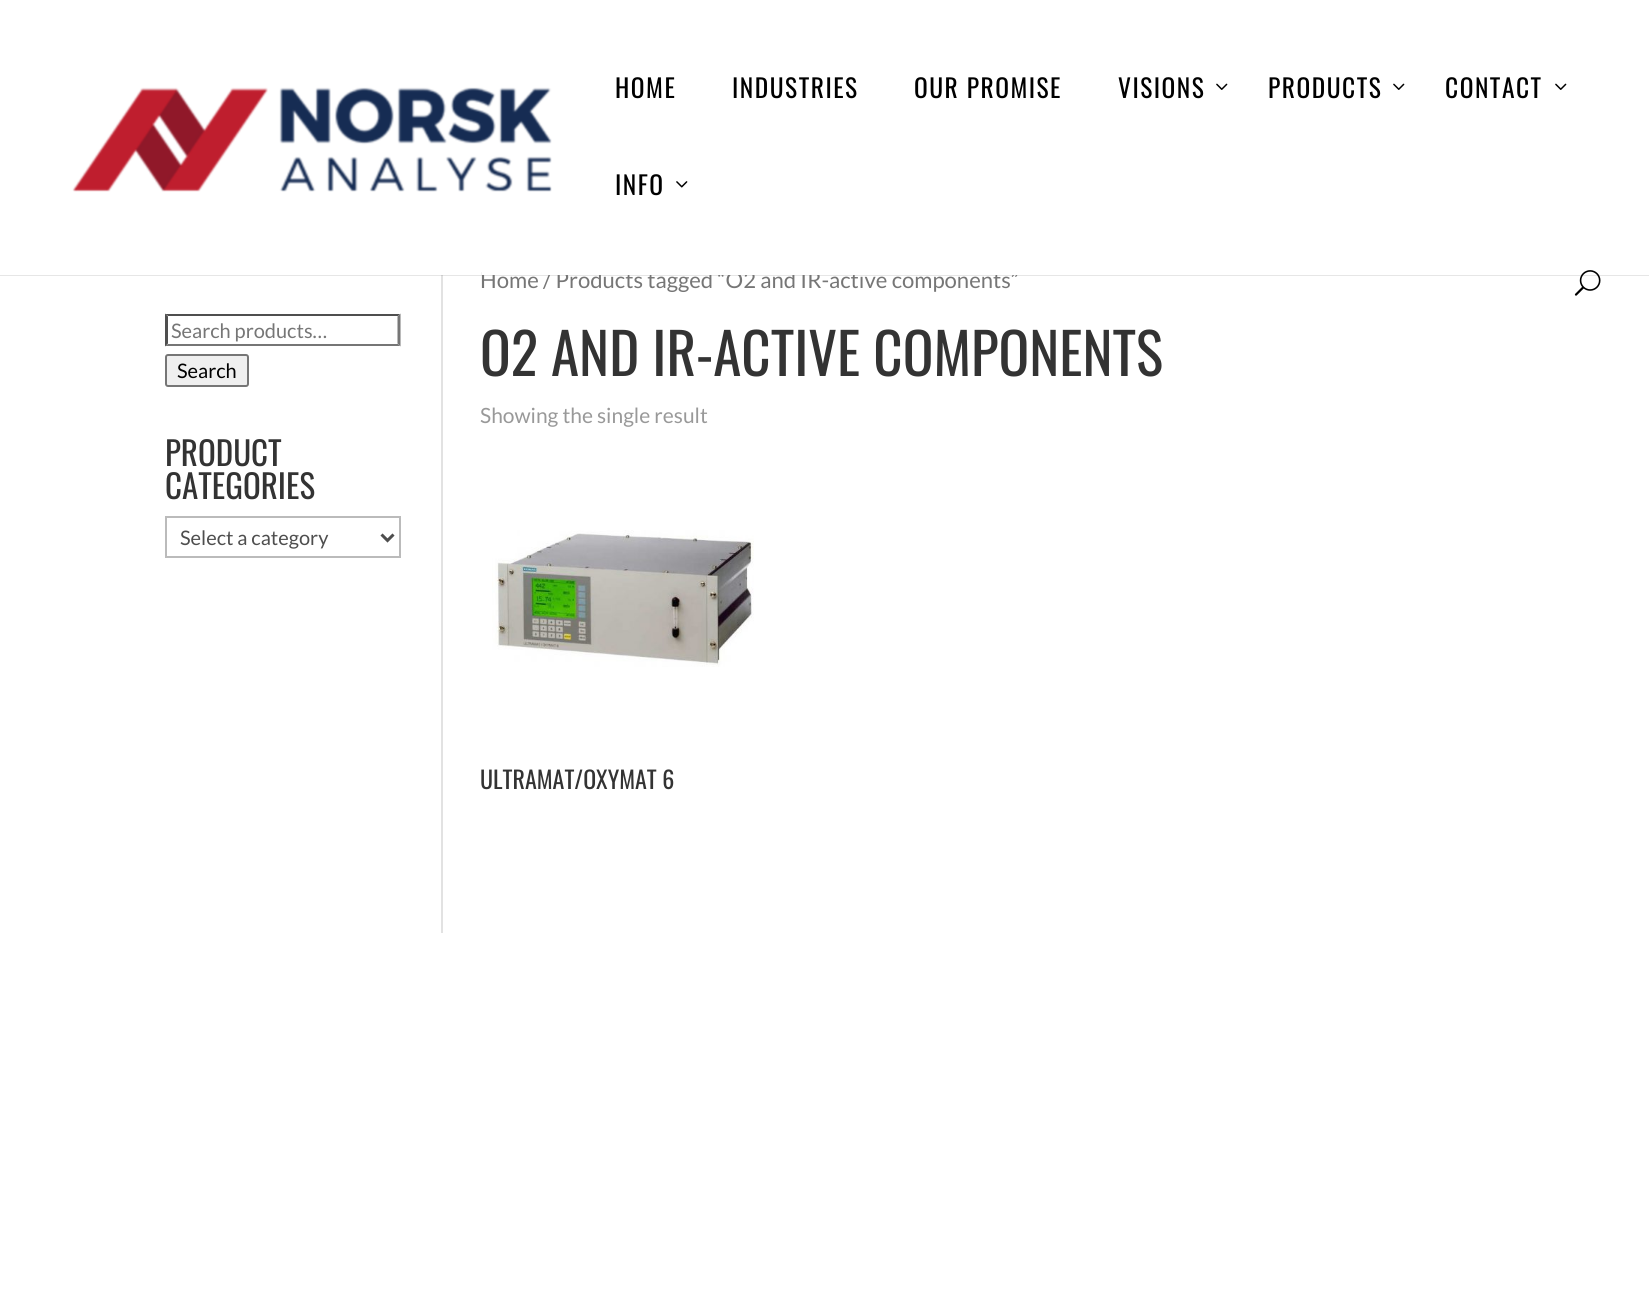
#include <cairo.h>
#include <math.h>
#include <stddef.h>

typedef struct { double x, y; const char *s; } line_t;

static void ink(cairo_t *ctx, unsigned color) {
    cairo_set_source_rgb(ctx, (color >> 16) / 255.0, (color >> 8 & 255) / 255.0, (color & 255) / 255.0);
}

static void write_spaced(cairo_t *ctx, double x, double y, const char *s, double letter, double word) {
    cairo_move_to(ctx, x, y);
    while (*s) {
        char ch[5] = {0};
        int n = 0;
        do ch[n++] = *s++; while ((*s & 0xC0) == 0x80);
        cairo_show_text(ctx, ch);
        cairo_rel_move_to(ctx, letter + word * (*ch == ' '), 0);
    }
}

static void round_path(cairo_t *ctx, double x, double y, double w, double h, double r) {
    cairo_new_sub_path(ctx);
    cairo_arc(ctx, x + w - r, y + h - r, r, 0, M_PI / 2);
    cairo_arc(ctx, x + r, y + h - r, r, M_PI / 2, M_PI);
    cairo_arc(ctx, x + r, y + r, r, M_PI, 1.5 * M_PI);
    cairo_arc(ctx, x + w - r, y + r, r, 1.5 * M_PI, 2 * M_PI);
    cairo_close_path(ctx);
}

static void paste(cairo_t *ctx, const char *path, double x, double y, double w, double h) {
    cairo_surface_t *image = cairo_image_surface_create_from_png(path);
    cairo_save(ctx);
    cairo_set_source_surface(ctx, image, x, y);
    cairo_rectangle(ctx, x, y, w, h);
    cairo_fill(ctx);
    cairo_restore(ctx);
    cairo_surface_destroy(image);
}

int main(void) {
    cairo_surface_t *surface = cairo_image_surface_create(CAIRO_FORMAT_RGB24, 1649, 1296);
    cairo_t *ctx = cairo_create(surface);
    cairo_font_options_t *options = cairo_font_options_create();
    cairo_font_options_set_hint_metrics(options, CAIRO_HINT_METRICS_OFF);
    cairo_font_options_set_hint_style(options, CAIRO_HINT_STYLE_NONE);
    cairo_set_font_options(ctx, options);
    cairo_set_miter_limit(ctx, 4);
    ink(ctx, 0xFFFFFF);
    cairo_paint(ctx);
    ink(ctx, 0xE2E2E2);
    cairo_rectangle(ctx, 441, 275, 2, 658);
    cairo_fill(ctx);
    cairo_set_source_rgba(ctx, 0, 0, 0, 0.1);
    cairo_rectangle(ctx, 0, 275, 1649, 1);
    cairo_fill(ctx);
    cairo_select_font_face(ctx, "Lato", CAIRO_FONT_SLANT_NORMAL, CAIRO_FONT_WEIGHT_NORMAL);
    cairo_set_font_size(ctx, 22.1);
    ink(ctx, 0x767676);
    cairo_move_to(ctx, 480, 288);
    cairo_show_text(ctx, "Home / Products tagged “O2 and IR-active components”");
    ink(ctx, 0xFFFFFF);
    cairo_rectangle(ctx, 482, 271, 536, 4);
    cairo_fill(ctx);
    paste(ctx, "media/1.png", 72, 87, 480, 105);
    cairo_select_font_face(ctx, "Oswald", CAIRO_FONT_SLANT_NORMAL, CAIRO_FONT_WEIGHT_NORMAL);
    cairo_set_font_size(ctx, 25.5);
    ink(ctx, 0x000000);
    {
        static const line_t items[] = {
            {615, 98, "HOME"},
            {732, 98, "INDUSTRIES"},
            {914, 98, "OUR PROMISE"},
            {1118, 98, "VISIONS"},
        };
        for (size_t i = 0; i < sizeof items / sizeof *items; i++) {
            write_spaced(ctx, items[i].x, items[i].y, items[i].s, 1.5, 0);
        }
    }
    paste(ctx, "media/2.png", 1216, 83, 12, 7);
    write_spaced(ctx, 1268, 98, "PRODUCTS", 1.5, 0);
    paste(ctx, "media/2.png", 1393, 83, 12, 7);
    write_spaced(ctx, 1445, 98, "CONTACT", 1.5, 0);
    paste(ctx, "media/2.png", 1555, 83, 12, 7);
    write_spaced(ctx, 615, 195, "INFO", 1.5, 0);
    paste(ctx, "media/3.png", 676, 181, 12, 7);
    paste(ctx, "media/4.png", 1574, 270, 27, 26);
    ink(ctx, 0x4F4F4F);
    cairo_new_path(ctx);
    cairo_move_to(ctx, 165, 314);
    cairo_line_to(ctx, 400, 314);
    cairo_line_to(ctx, 398, 316);
    cairo_line_to(ctx, 168, 316);
    cairo_close_path(ctx);
    cairo_fill(ctx);
    ink(ctx, 0x767676);
    cairo_new_path(ctx);
    cairo_move_to(ctx, 400.5, 313.5);
    cairo_line_to(ctx, 400.5, 346.5);
    cairo_line_to(ctx, 397.5, 343.5);
    cairo_line_to(ctx, 397.5, 316.5);
    cairo_close_path(ctx);
    cairo_fill(ctx);
    cairo_new_path(ctx);
    cairo_move_to(ctx, 400, 346);
    cairo_line_to(ctx, 165, 346);
    cairo_line_to(ctx, 168, 344);
    cairo_line_to(ctx, 398, 344);
    cairo_close_path(ctx);
    cairo_fill(ctx);
    ink(ctx, 0x4F4F4F);
    cairo_new_path(ctx);
    cairo_move_to(ctx, 165, 346.5);
    cairo_line_to(ctx, 165, 313.5);
    cairo_line_to(ctx, 168, 316.5);
    cairo_line_to(ctx, 168, 343.5);
    cairo_close_path(ctx);
    cairo_fill(ctx);
    cairo_select_font_face(ctx, "Lato", CAIRO_FONT_SLANT_NORMAL, CAIRO_FONT_WEIGHT_NORMAL);
    cairo_set_font_size(ctx, 20);
    ink(ctx, 0x767676);
    cairo_move_to(ctx, 171, 338);
    cairo_show_text(ctx, "Search products…");
    ink(ctx, 0xEFEFEF);
    round_path(ctx, 166, 355, 82, 31, 2);
    cairo_fill_preserve(ctx);
    ink(ctx, 0x767676);
    cairo_stroke(ctx);
    ink(ctx, 0x000000);
    cairo_move_to(ctx, 177, 378);
    cairo_show_text(ctx, "Search");
    cairo_select_font_face(ctx, "Oswald", CAIRO_FONT_SLANT_NORMAL, CAIRO_FONT_WEIGHT_NORMAL);
    cairo_set_font_size(ctx, 33);
    ink(ctx, 0x333333);
    cairo_move_to(ctx, 165, 466);
    cairo_show_text(ctx, "PRODUCT");
    cairo_move_to(ctx, 165, 499);
    cairo_show_text(ctx, "CATEGORIES");
    cairo_rectangle(ctx, 166, 517, 234, 40);
    ink(ctx, 0xBBBBBB);
    cairo_stroke(ctx);
    cairo_new_path(ctx);
    cairo_move_to(ctx, 381.5, 534.5);
    cairo_line_to(ctx, 387.5, 540.5);
    cairo_line_to(ctx, 393.5, 534.5);
    ink(ctx, 0x4E4E4E);
    cairo_set_line_width(ctx, 3);
    cairo_stroke(ctx);
    cairo_select_font_face(ctx, "Lato", CAIRO_FONT_SLANT_NORMAL, CAIRO_FONT_WEIGHT_NORMAL);
    cairo_set_font_size(ctx, 20);
    cairo_move_to(ctx, 180, 545);
    cairo_show_text(ctx, "Select a category");
    cairo_select_font_face(ctx, "Oswald", CAIRO_FONT_SLANT_NORMAL, CAIRO_FONT_WEIGHT_NORMAL);
    cairo_set_font_size(ctx, 57);
    ink(ctx, 0x333333);
    cairo_move_to(ctx, 480, 376);
    cairo_show_text(ctx, "O2 AND IR-ACTIVE COMPONENTS");
    cairo_select_font_face(ctx, "Lato", CAIRO_FONT_SLANT_NORMAL, CAIRO_FONT_WEIGHT_NORMAL);
    cairo_set_font_size(ctx, 21);
    ink(ctx, 0x999999);
    cairo_move_to(ctx, 480, 423);
    cairo_show_text(ctx, "Showing the single result");
    paste(ctx, "media/5.png", 492, 530, 262, 137);
    cairo_select_font_face(ctx, "Oswald", CAIRO_FONT_SLANT_NORMAL, CAIRO_FONT_WEIGHT_NORMAL);
    cairo_set_font_size(ctx, 24);
    ink(ctx, 0x333333);
    cairo_move_to(ctx, 480, 789);
    cairo_show_text(ctx, "ULTRAMAT/OXYMAT 6");
    cairo_surface_write_to_png(surface, "image.png");
    cairo_font_options_destroy(options);
    cairo_destroy(ctx);
    cairo_surface_destroy(surface);
    return 0;
}
